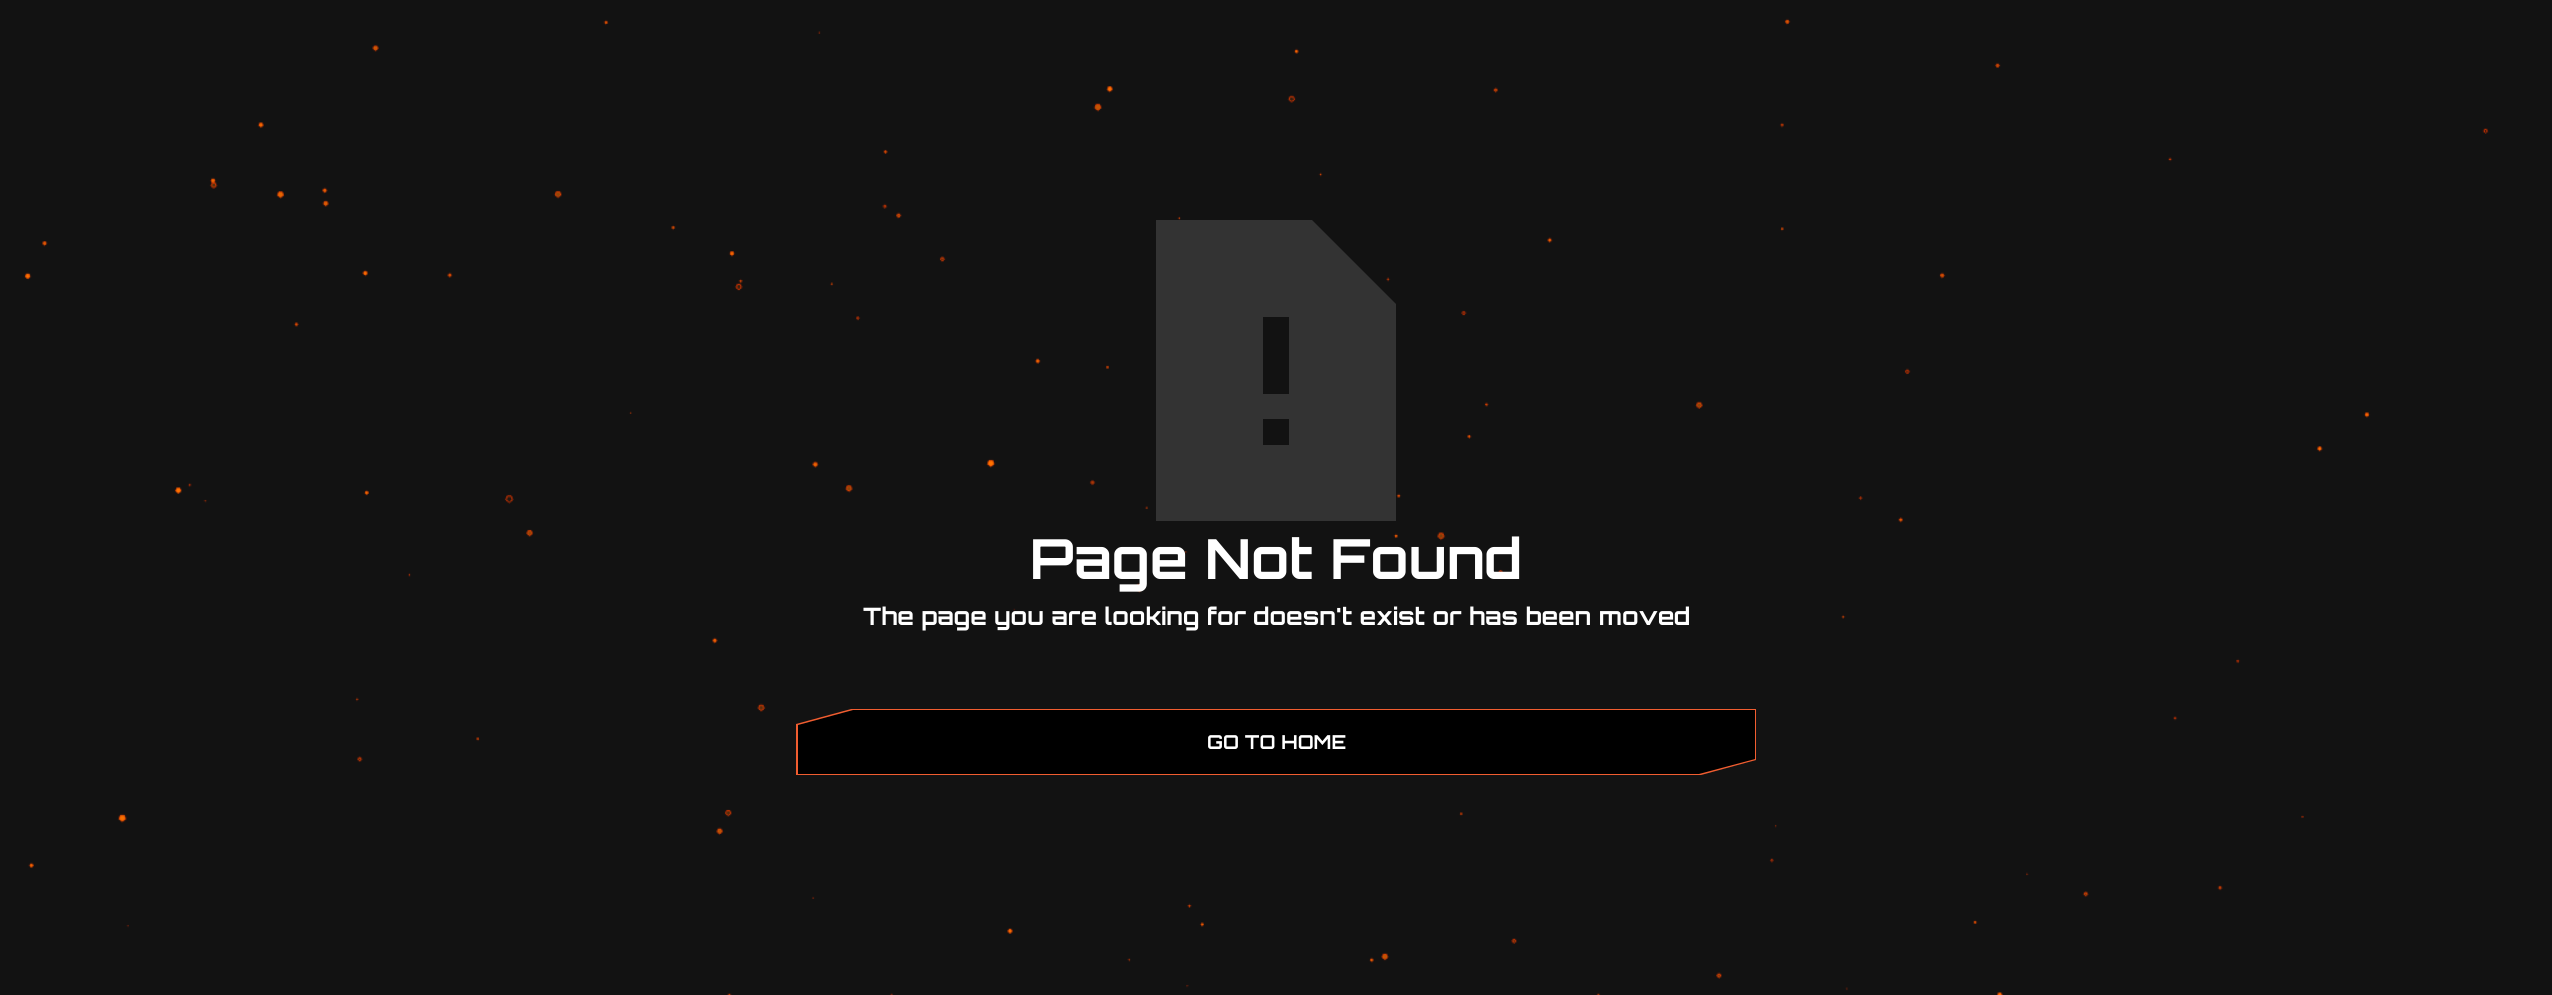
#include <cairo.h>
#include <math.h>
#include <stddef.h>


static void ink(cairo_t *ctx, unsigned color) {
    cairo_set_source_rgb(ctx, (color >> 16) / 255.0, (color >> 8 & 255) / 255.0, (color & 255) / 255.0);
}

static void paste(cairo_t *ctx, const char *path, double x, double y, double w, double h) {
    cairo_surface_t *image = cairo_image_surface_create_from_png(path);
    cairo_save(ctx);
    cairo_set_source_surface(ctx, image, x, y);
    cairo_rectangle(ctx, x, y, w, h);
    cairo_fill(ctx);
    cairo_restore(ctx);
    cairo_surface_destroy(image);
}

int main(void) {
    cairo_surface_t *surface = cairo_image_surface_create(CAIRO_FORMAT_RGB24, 2552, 995);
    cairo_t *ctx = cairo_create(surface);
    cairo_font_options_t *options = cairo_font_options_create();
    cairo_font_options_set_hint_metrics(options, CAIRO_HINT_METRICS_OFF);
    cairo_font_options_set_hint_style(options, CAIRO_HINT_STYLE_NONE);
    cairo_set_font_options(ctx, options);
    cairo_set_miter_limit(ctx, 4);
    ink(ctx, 0x121212);
    cairo_paint(ctx);
    paste(ctx, "media/1.png", 24, 18, 2465, 977);
    ink(ctx, 0x333333);
    cairo_set_fill_rule(ctx, CAIRO_FILL_RULE_EVEN_ODD);
    cairo_new_path(ctx);
    cairo_move_to(ctx, 1156, 220);
    cairo_line_to(ctx, 1312, 220);
    cairo_line_to(ctx, 1396, 304);
    cairo_line_to(ctx, 1396, 521);
    cairo_line_to(ctx, 1156, 521);
    cairo_close_path(ctx);
    cairo_move_to(ctx, 1263, 317);
    cairo_line_to(ctx, 1289, 317);
    cairo_line_to(ctx, 1289, 394);
    cairo_line_to(ctx, 1263, 394);
    cairo_close_path(ctx);
    cairo_move_to(ctx, 1263, 419);
    cairo_line_to(ctx, 1289, 419);
    cairo_line_to(ctx, 1289, 445);
    cairo_line_to(ctx, 1263, 445);
    cairo_close_path(ctx);
    cairo_fill(ctx);
    cairo_select_font_face(ctx, "Orbitron", CAIRO_FONT_SLANT_NORMAL, CAIRO_FONT_WEIGHT_BOLD);
    cairo_set_font_size(ctx, 55.25);
    ink(ctx, 0xFFFFFF);
    cairo_move_to(ctx, 1030, 579);
    cairo_show_text(ctx, "Page Not Found");
    cairo_set_font_size(ctx, 24);
    cairo_move_to(ctx, 863, 625);
    cairo_show_text(ctx, "The page you are looking for doesn't exist or has been moved");
    ink(ctx, 0xF15D30);
    cairo_set_fill_rule(ctx, CAIRO_FILL_RULE_WINDING);
    cairo_new_path(ctx);
    cairo_move_to(ctx, 796, 775);
    cairo_line_to(ctx, 1701, 775);
    cairo_line_to(ctx, 1756, 760);
    cairo_line_to(ctx, 1756, 709);
    cairo_line_to(ctx, 851, 709);
    cairo_line_to(ctx, 796, 724);
    cairo_close_path(ctx);
    cairo_fill(ctx);
    ink(ctx, 0x000000);
    cairo_new_path(ctx);
    cairo_move_to(ctx, 798, 725);
    cairo_line_to(ctx, 798, 774);
    cairo_line_to(ctx, 1699, 774);
    cairo_line_to(ctx, 1755, 759);
    cairo_line_to(ctx, 1755, 710);
    cairo_line_to(ctx, 853, 710);
    cairo_close_path(ctx);
    cairo_fill(ctx);
    cairo_set_font_size(ctx, 19.25);
    ink(ctx, 0xFFFFFF);
    cairo_move_to(ctx, 1207, 749);
    cairo_show_text(ctx, "GO TO HOME");
    cairo_surface_write_to_png(surface, "image.png");
    cairo_font_options_destroy(options);
    cairo_destroy(ctx);
    cairo_surface_destroy(surface);
    return 0;
}
